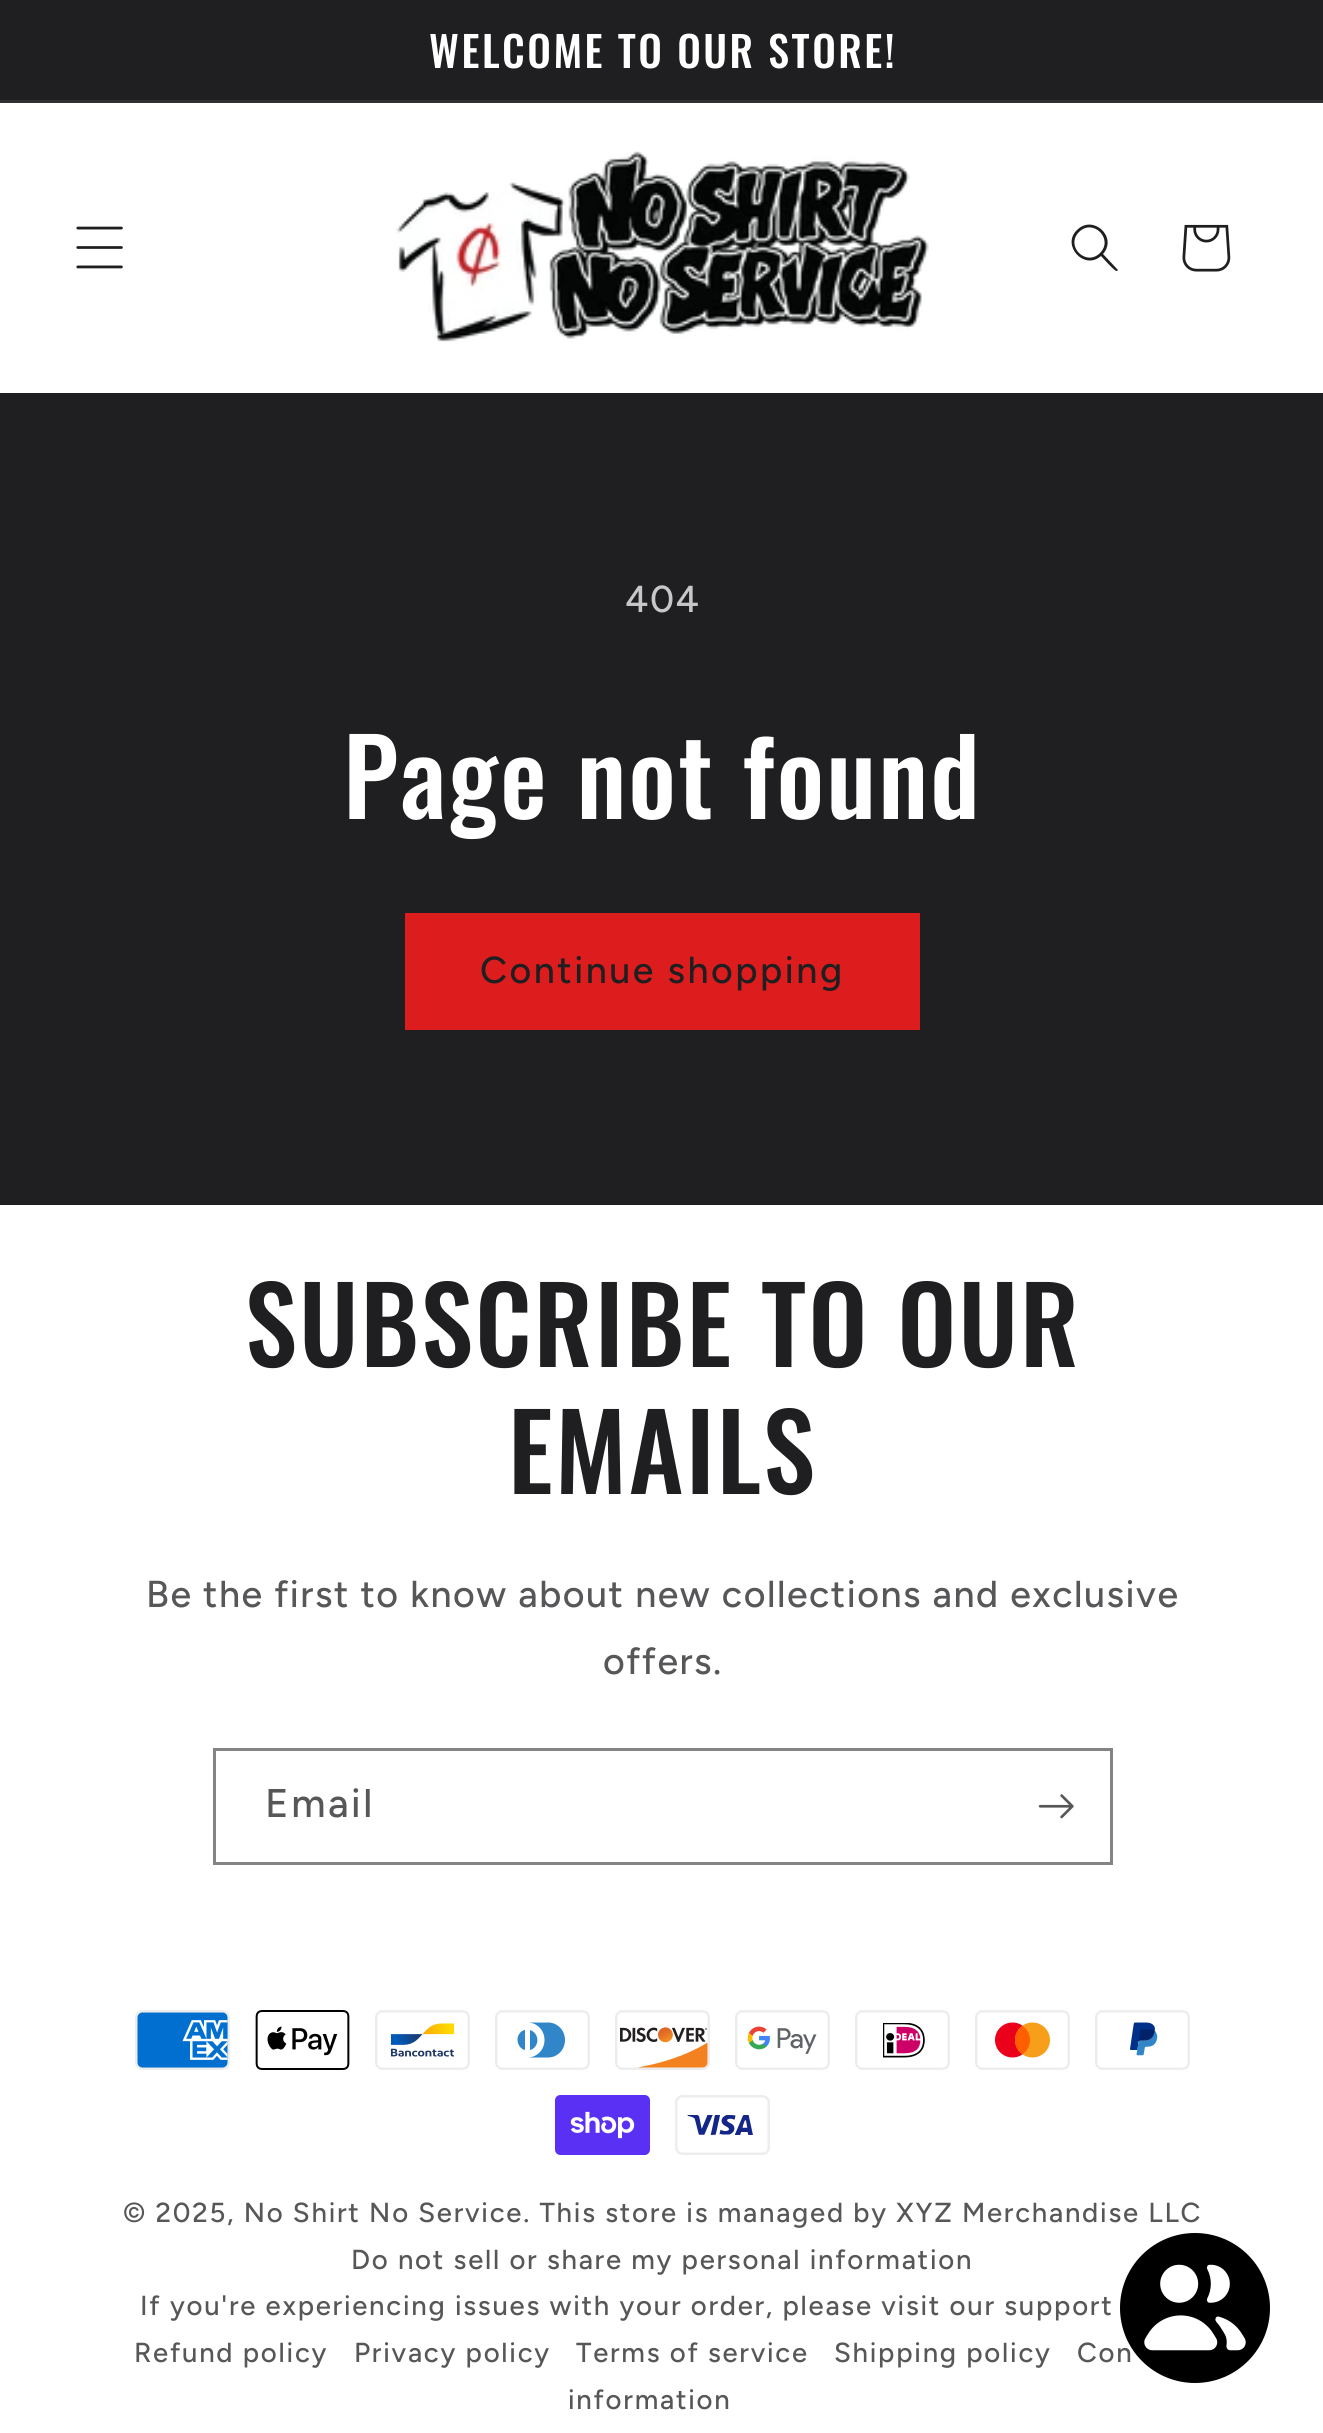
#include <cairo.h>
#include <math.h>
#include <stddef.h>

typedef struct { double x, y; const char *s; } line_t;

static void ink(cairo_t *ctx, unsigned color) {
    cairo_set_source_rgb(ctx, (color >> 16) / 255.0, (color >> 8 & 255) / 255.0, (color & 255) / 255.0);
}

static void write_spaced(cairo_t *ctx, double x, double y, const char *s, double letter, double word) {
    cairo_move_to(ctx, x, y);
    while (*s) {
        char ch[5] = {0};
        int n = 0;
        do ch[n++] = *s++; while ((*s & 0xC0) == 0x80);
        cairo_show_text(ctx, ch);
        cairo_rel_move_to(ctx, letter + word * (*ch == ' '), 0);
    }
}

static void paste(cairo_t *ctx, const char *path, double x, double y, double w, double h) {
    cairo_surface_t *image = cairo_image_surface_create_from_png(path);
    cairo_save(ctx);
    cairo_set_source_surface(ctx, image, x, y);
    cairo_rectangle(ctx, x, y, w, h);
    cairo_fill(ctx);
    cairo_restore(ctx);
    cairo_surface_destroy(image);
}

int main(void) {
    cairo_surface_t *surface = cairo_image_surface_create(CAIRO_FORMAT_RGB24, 1323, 2433);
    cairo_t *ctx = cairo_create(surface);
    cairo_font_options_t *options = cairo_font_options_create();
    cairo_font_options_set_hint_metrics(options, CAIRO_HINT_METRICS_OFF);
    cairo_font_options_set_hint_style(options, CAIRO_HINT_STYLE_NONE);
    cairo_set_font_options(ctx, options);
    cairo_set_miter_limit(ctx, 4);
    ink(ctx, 0x1F1F21);
    cairo_paint(ctx);
    ink(ctx, 0x313133);
    cairo_rectangle(ctx, 0, 100, 1323, 3);
    cairo_fill(ctx);
    cairo_select_font_face(ctx, "Oswald Medium", CAIRO_FONT_SLANT_NORMAL, CAIRO_FONT_WEIGHT_NORMAL);
    cairo_set_font_size(ctx, 42);
    ink(ctx, 0xFFFFFF);
    write_spaced(ctx, 429, 68, "WELCOME TO OUR STORE!", 2.5, 0);
    cairo_rectangle(ctx, 0, 103, 1323, 290);
    cairo_fill(ctx);
    paste(ctx, "media/1.png", 76, 226, 47, 43);
    paste(ctx, "media/2.png", 396, 151, 533, 191);
    ink(ctx, 0x1F1F21);
    cairo_set_fill_rule(ctx, CAIRO_FILL_RULE_EVEN_ODD);
    cairo_new_path(ctx);
    cairo_move_to(ctx, 1100, 253);
    cairo_curve_to(ctx, 1086, 267, 1065, 246, 1079, 232);
    cairo_curve_to(ctx, 1093, 218, 1114, 239, 1100, 253);
    cairo_close_path(ctx);
    cairo_move_to(ctx, 1101, 256);
    cairo_curve_to(ctx, 1084, 271, 1061, 245, 1077, 230);
    cairo_curve_to(ctx, 1093, 214, 1118, 237, 1103, 254);
    cairo_line_to(ctx, 1118, 270);
    cairo_line_to(ctx, 1117, 271);
    cairo_curve_to(ctx, 1115, 272, 1103, 258, 1101, 256);
    cairo_close_path(ctx);
    cairo_fill(ctx);
    paste(ctx, "media/3.png", 1182, 224, 49, 48);
    cairo_select_font_face(ctx, "Figtree Medium", CAIRO_FONT_SLANT_NORMAL, CAIRO_FONT_WEIGHT_NORMAL);
    cairo_set_font_size(ctx, 37.5);
    ink(ctx, 0xC7C7C8);
    write_spaced(ctx, 625, 612, "404", 1.5, 0);
    cairo_select_font_face(ctx, "Oswald Medium", CAIRO_FONT_SLANT_NORMAL, CAIRO_FONT_WEIGHT_NORMAL);
    cairo_set_font_size(ctx, 105);
    ink(ctx, 0xFFFFFF);
    write_spaced(ctx, 343, 819, "Page not found", 2.1, 0);
    ink(ctx, 0xDD1D1D);
    cairo_rectangle(ctx, 405, 913, 515, 117);
    cairo_fill(ctx);
    cairo_select_font_face(ctx, "Figtree Medium", CAIRO_FONT_SLANT_NORMAL, CAIRO_FONT_WEIGHT_NORMAL);
    cairo_set_font_size(ctx, 37.5);
    ink(ctx, 0x1F1F21);
    write_spaced(ctx, 480, 983, "Continue shopping", 2.5, 0);
    ink(ctx, 0xFFFFFF);
    cairo_rectangle(ctx, 0, 1205, 1323, 1228);
    cairo_fill(ctx);
    cairo_select_font_face(ctx, "Oswald Medium", CAIRO_FONT_SLANT_NORMAL, CAIRO_FONT_WEIGHT_NORMAL);
    cairo_set_font_size(ctx, 105);
    ink(ctx, 0x1F1F21);
    write_spaced(ctx, 245, 1367, "SUBSCRIBE TO OUR", 2.1, 0);
    write_spaced(ctx, 508, 1494, "EMAILS", 2.1, 0);
    cairo_select_font_face(ctx, "Figtree Medium", CAIRO_FONT_SLANT_NORMAL, CAIRO_FONT_WEIGHT_NORMAL);
    cairo_set_font_size(ctx, 37.5);
    ink(ctx, 0x575759);
    write_spaced(ctx, 146, 1607, "Be the first to know about new collections and exclusive", 1.5, 0);
    write_spaced(ctx, 603, 1674, "offers.", 1.5, 0);
    cairo_rectangle(ctx, 214.5, 1749.5, 897, 114);
    ink(ctx, 0x848485);
    cairo_set_line_width(ctx, 3);
    cairo_stroke(ctx);
    cairo_set_font_size(ctx, 40);
    ink(ctx, 0x575759);
    write_spaced(ctx, 265, 1817, "Email", 2.5, 0);
    paste(ctx, "media/4.png", 1038, 1794, 36, 25);
    paste(ctx, "media/5.png", 135, 2010, 95, 60);
    paste(ctx, "media/6.png", 255, 2010, 95, 60);
    paste(ctx, "media/7.png", 375, 2010, 95, 60);
    paste(ctx, "media/8.png", 495, 2010, 95, 60);
    paste(ctx, "media/9.png", 615, 2010, 95, 60);
    paste(ctx, "media/10.png", 735, 2010, 95, 60);
    paste(ctx, "media/11.png", 855, 2010, 95, 60);
    paste(ctx, "media/12.png", 975, 2010, 95, 60);
    paste(ctx, "media/13.png", 1095, 2010, 95, 60);
    paste(ctx, "media/14.png", 555, 2095, 95, 60);
    paste(ctx, "media/15.png", 675, 2095, 95, 60);
    cairo_set_font_size(ctx, 27.5);
    {
        static const line_t items[] = {
            {123, 2222, "© 2025, No Shirt No Service. This store is managed by XYZ Merchandise LLC"},
            {351, 2269, "Do not sell or share my personal information"},
            {140, 2315, "If you're experiencing issues with your order, please visit our support"},
            {134, 2362, "Refund policy"},
            {354, 2362, "Privacy policy"},
            {576, 2362, "Terms of service"},
            {834, 2362, "Shipping policy"},
            {1077, 2362, "Con"},
            {568, 2409, "information"},
        };
        for (size_t i = 0; i < sizeof items / sizeof *items; i++) {
            write_spaced(ctx, items[i].x, items[i].y, items[i].s, 1.75, 0);
        }
    }
    ink(ctx, 0x000000);
    cairo_new_path(ctx);
    cairo_arc(ctx, 1195, 2308, 75, 0, 2 * M_PI);
    cairo_fill(ctx);
    paste(ctx, "media/16.png", 1144, 2264, 102, 87);
    cairo_surface_write_to_png(surface, "image.png");
    cairo_font_options_destroy(options);
    cairo_destroy(ctx);
    cairo_surface_destroy(surface);
    return 0;
}
